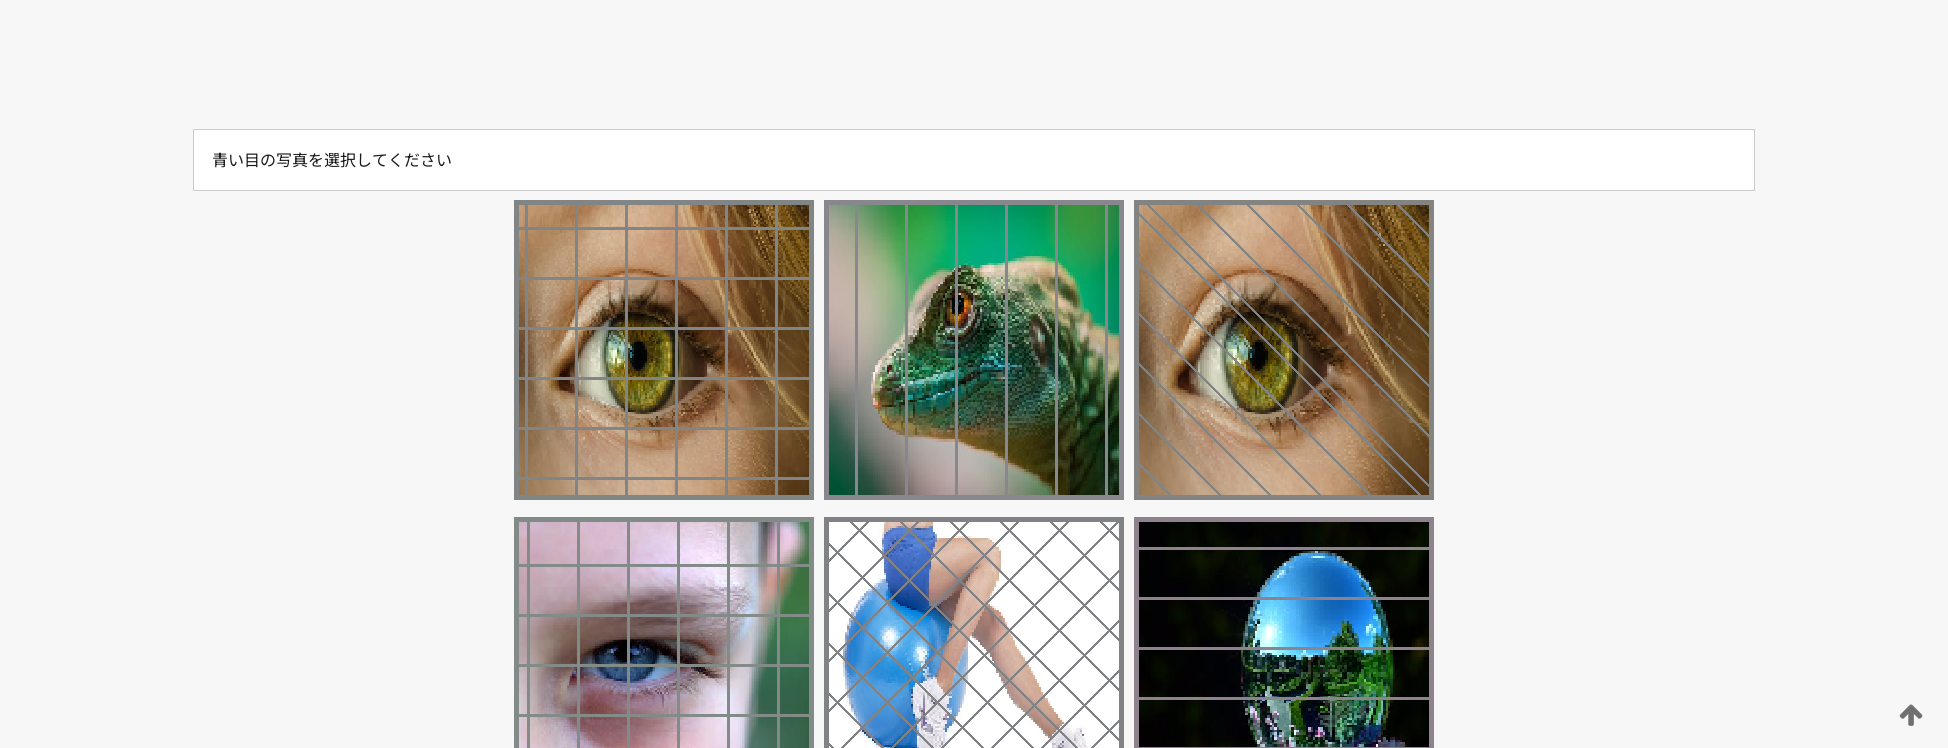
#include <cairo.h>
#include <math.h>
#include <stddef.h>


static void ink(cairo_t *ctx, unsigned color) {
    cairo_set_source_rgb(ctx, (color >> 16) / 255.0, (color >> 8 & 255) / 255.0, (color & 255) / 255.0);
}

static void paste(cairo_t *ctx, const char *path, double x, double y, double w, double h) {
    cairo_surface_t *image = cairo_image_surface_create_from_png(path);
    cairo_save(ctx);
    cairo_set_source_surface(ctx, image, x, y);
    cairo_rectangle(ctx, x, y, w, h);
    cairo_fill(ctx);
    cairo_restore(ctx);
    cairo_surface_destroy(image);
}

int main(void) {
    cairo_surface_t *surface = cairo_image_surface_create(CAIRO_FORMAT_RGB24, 1948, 748);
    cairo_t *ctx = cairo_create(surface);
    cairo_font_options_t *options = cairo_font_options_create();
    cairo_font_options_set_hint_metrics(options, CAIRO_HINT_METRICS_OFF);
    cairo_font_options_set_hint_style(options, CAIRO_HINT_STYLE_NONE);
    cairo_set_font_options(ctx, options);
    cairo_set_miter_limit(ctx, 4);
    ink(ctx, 0xF7F7F7);
    cairo_paint(ctx);
    ink(ctx, 0xFFFFFF);
    cairo_rectangle(ctx, 193.5, 129.5, 1561, 61);
    cairo_fill_preserve(ctx);
    ink(ctx, 0xCCCCCC);
    cairo_set_line_width(ctx, 1);
    cairo_stroke(ctx);
    cairo_select_font_face(ctx, "Noto Sans SC Thin", CAIRO_FONT_SLANT_NORMAL, CAIRO_FONT_WEIGHT_NORMAL);
    cairo_set_font_size(ctx, 16);
    ink(ctx, 0x1A1A1A);
    cairo_move_to(ctx, 212, 166);
    cairo_show_text(ctx, "青い目の写真を選択してください");
    paste(ctx, "media/1.png", 514, 200, 300, 300);
    paste(ctx, "media/2.png", 824, 200, 300, 300);
    paste(ctx, "media/3.png", 1134, 200, 300, 300);
    paste(ctx, "media/4.png", 514, 517, 300, 231);
    paste(ctx, "media/5.png", 824, 517, 300, 231);
    paste(ctx, "media/6.png", 1134, 517, 300, 231);
    paste(ctx, "media/7.png", 1899, 704, 24, 22);
    cairo_surface_write_to_png(surface, "image.png");
    cairo_font_options_destroy(options);
    cairo_destroy(ctx);
    cairo_surface_destroy(surface);
    return 0;
}
